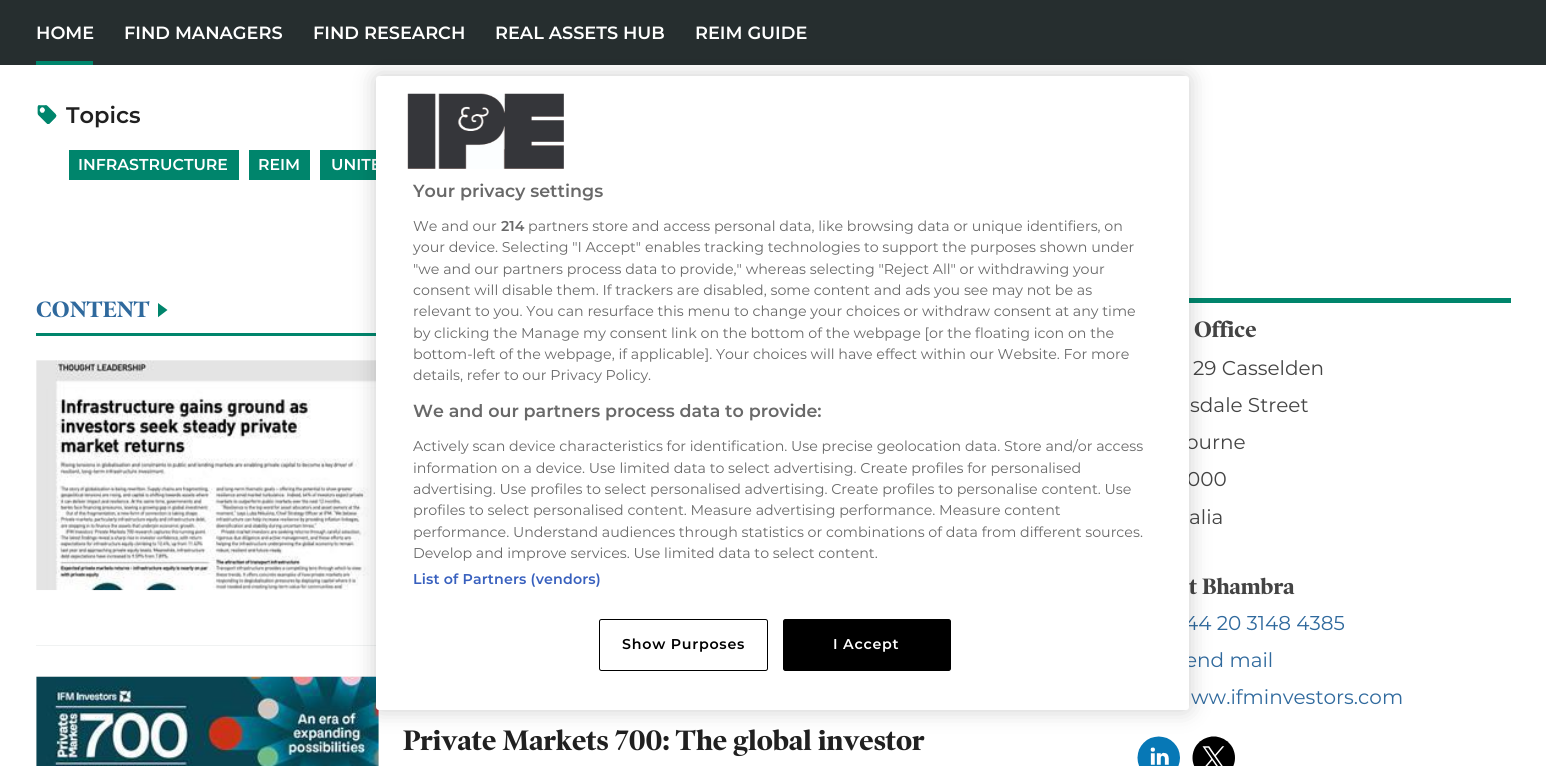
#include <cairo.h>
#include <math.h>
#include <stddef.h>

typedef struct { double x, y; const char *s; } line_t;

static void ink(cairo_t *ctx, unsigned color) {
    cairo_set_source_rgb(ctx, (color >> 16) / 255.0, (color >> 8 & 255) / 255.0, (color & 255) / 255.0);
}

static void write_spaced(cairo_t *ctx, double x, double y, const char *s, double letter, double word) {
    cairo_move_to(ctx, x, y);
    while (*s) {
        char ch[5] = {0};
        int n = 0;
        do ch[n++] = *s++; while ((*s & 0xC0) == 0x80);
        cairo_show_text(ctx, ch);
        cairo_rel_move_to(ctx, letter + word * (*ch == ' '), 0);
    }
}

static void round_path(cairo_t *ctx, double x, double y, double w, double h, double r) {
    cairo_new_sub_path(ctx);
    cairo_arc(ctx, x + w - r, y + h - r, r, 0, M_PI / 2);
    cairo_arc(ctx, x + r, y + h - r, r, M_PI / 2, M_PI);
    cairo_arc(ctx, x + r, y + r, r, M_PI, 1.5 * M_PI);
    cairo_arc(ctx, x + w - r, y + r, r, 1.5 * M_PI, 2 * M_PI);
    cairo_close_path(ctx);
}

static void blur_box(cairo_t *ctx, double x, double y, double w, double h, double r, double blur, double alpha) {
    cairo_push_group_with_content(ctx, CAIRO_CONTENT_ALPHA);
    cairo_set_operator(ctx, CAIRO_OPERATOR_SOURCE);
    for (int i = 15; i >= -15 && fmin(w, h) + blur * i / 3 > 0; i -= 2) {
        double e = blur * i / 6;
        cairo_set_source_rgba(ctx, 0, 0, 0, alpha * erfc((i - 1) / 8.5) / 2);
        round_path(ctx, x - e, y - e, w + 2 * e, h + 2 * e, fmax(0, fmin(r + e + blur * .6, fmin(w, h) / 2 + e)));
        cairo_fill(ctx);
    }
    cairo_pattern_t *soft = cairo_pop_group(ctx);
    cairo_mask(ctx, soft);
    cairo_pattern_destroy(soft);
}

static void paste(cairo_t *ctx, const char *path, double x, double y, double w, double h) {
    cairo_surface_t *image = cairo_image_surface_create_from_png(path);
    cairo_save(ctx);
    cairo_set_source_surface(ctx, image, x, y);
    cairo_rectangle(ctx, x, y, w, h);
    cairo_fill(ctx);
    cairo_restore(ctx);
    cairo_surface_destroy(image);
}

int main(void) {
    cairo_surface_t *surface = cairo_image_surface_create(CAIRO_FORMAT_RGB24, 1546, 766);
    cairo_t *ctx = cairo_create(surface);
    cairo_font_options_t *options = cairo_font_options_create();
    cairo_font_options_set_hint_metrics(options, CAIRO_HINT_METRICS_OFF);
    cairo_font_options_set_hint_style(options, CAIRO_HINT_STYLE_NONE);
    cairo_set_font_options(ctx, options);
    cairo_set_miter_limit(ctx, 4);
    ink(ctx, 0xFFFFFF);
    cairo_paint(ctx);
    ink(ctx, 0x262E2F);
    cairo_rectangle(ctx, 0, 0, 1546, 65);
    cairo_fill(ctx);
    cairo_select_font_face(ctx, "Montserrat SemiBold", CAIRO_FONT_SLANT_NORMAL, CAIRO_FONT_WEIGHT_NORMAL);
    cairo_set_font_size(ctx, 17.75);
    ink(ctx, 0xFFFFFF);
    cairo_move_to(ctx, 36, 39);
    cairo_show_text(ctx, "HOME");
    ink(ctx, 0x00856C);
    cairo_rectangle(ctx, 36, 61, 57, 4);
    cairo_fill(ctx);
    ink(ctx, 0xFFFFFF);
    {
        static const line_t items[] = {
            {124, 39, "FIND MANAGERS"},
            {313, 39, "FIND RESEARCH"},
            {495, 39, "REAL ASSETS HUB"},
            {695, 39, "REIM GUIDE"},
        };
        for (size_t i = 0; i < sizeof items / sizeof *items; i++) {
            cairo_move_to(ctx, items[i].x, items[i].y);
            cairo_show_text(ctx, items[i].s);
        }
    }
    paste(ctx, "media/1.png", 37, 105, 20, 19);
    cairo_set_font_size(ctx, 22.5);
    ink(ctx, 0x202020);
    cairo_move_to(ctx, 66, 123);
    cairo_show_text(ctx, "Topics");
    ink(ctx, 0x00856C);
    cairo_rectangle(ctx, 69, 150, 170, 30);
    cairo_fill(ctx);
    cairo_set_font_size(ctx, 15.75);
    ink(ctx, 0xFFFFFF);
    cairo_move_to(ctx, 78, 170);
    cairo_show_text(ctx, "INFRASTRUCTURE");
    ink(ctx, 0x00856C);
    cairo_rectangle(ctx, 249, 150, 61, 30);
    cairo_fill(ctx);
    ink(ctx, 0xFFFFFF);
    cairo_move_to(ctx, 258, 170);
    cairo_show_text(ctx, "REIM");
    ink(ctx, 0x00856C);
    cairo_rectangle(ctx, 320, 150, 56, 30);
    cairo_fill(ctx);
    ink(ctx, 0xFFFFFF);
    cairo_move_to(ctx, 331, 170);
    cairo_show_text(ctx, "UNITE");
    ink(ctx, 0x00856C);
    cairo_rectangle(ctx, 36, 333, 340, 3);
    cairo_fill(ctx);
    cairo_select_font_face(ctx, "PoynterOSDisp", CAIRO_FONT_SLANT_NORMAL, CAIRO_FONT_WEIGHT_BOLD);
    cairo_set_font_size(ctx, 22.5);
    ink(ctx, 0x2F699D);
    cairo_move_to(ctx, 36, 317);
    cairo_show_text(ctx, "CONTENT");
    paste(ctx, "media/2.png", 158, 303, 10, 15);
    ink(ctx, 0xF0F2F2);
    cairo_rectangle(ctx, 36, 645, 340, 1);
    cairo_fill(ctx);
    ink(ctx, 0xF8F8F8);
    cairo_rectangle(ctx, 36, 360, 340, 230);
    cairo_fill(ctx);
    paste(ctx, "media/3.png", 36, 360, 340, 231);
    cairo_rectangle(ctx, 36, 676, 343, 90);
    cairo_fill(ctx);
    paste(ctx, "media/4.png", 36, 676, 343, 90);
    cairo_set_font_size(ctx, 28.5);
    ink(ctx, 0x202020);
    cairo_move_to(ctx, 403, 750);
    cairo_show_text(ctx, "Private Markets 700: The global investor");
    ink(ctx, 0x00856C);
    cairo_rectangle(ctx, 1189, 298, 322, 5);
    cairo_fill(ctx);
    cairo_set_font_size(ctx, 22.5);
    ink(ctx, 0x444444);
    cairo_move_to(ctx, 1194, 337);
    cairo_show_text(ctx, "Office");
    cairo_select_font_face(ctx, "Montserrat", CAIRO_FONT_SLANT_NORMAL, CAIRO_FONT_WEIGHT_NORMAL);
    cairo_set_font_size(ctx, 20);
    {
        static const line_t items[] = {
            {1193, 375, "29 Casselden"},
            {1190, 412, "sdale Street"},
            {1186, 449, "ourne"},
            {1187, 486, "000"},
            {1189, 524, "alia"},
        };
        for (size_t i = 0; i < sizeof items / sizeof *items; i++) {
            cairo_move_to(ctx, items[i].x, items[i].y);
            cairo_show_text(ctx, items[i].s);
        }
    }
    cairo_select_font_face(ctx, "PoynterOSDisp", CAIRO_FONT_SLANT_NORMAL, CAIRO_FONT_WEIGHT_BOLD);
    cairo_set_font_size(ctx, 22.5);
    cairo_move_to(ctx, 1189, 594);
    cairo_show_text(ctx, "t Bhambra");
    cairo_select_font_face(ctx, "Montserrat", CAIRO_FONT_SLANT_NORMAL, CAIRO_FONT_WEIGHT_NORMAL);
    cairo_set_font_size(ctx, 20);
    ink(ctx, 0x2F699D);
    {
        static const line_t items[] = {
            {1185, 630, "44 20 3148 4385"},
            {1185, 667, "end mail"},
            {1191, 704, "ww.ifminvestors.com"},
        };
        for (size_t i = 0; i < sizeof items / sizeof *items; i++) {
            cairo_move_to(ctx, items[i].x, items[i].y);
            cairo_show_text(ctx, items[i].s);
        }
    }
    paste(ctx, "media/5.png", 1137, 736, 43, 30);
    paste(ctx, "media/6.png", 1192, 736, 43, 30);
    ink(ctx, 0x000000);
    blur_box(ctx, 376, 76, 813, 634, 3, 11, 0.2);
    ink(ctx, 0xFFFFFF);
    round_path(ctx, 376, 76, 813, 634, 3);
    cairo_fill(ctx);
    paste(ctx, "media/7.png", 407, 93, 157, 76);
    cairo_select_font_face(ctx, "Montserrat SemiBold", CAIRO_FONT_SLANT_NORMAL, CAIRO_FONT_WEIGHT_NORMAL);
    cairo_set_font_size(ctx, 17.5);
    ink(ctx, 0x696969);
    cairo_move_to(ctx, 413, 197);
    cairo_show_text(ctx, "Your privacy settings");
    cairo_select_font_face(ctx, "Montserrat", CAIRO_FONT_SLANT_NORMAL, CAIRO_FONT_WEIGHT_NORMAL);
    cairo_set_font_size(ctx, 14.23);
    cairo_move_to(ctx, 413, 231);
    cairo_show_text(ctx, "We and our");
    cairo_select_font_face(ctx, "Montserrat SemiBold", CAIRO_FONT_SLANT_NORMAL, CAIRO_FONT_WEIGHT_NORMAL);
    cairo_move_to(ctx, 501, 231);
    cairo_show_text(ctx, "214");
    cairo_select_font_face(ctx, "Montserrat", CAIRO_FONT_SLANT_NORMAL, CAIRO_FONT_WEIGHT_NORMAL);
    {
        static const line_t items[] = {
            {528, 231, "partners store and access personal data, like browsing data or unique identifiers, on"},
            {413, 252, "your device. Selecting \"I Accept\" enables tracking technologies to support the purposes shown under"},
            {413, 274, "\"we and our partners process data to provide,\" whereas selecting \"Reject All\" or withdrawing your"},
            {413, 295, "consent will disable them. If trackers are disabled, some content and ads you see may not be as"},
            {413, 316, "relevant to you. You can resurface this menu to change your choices or withdraw consent at any time"},
            {413, 338, "by clicking the Manage my consent link on the bottom of the webpage [or the floating icon on the"},
            {413, 359, "bottom-left of the webpage, if applicable]. Your choices will have effect within our Website. For more"},
            {413, 380, "details, refer to our Privacy Policy."},
        };
        for (size_t i = 0; i < sizeof items / sizeof *items; i++) {
            cairo_move_to(ctx, items[i].x, items[i].y);
            cairo_show_text(ctx, items[i].s);
        }
    }
    cairo_select_font_face(ctx, "Montserrat SemiBold", CAIRO_FONT_SLANT_NORMAL, CAIRO_FONT_WEIGHT_NORMAL);
    cairo_set_font_size(ctx, 17.5);
    cairo_move_to(ctx, 413, 417);
    cairo_show_text(ctx, "We and our partners process data to provide:");
    cairo_select_font_face(ctx, "Montserrat", CAIRO_FONT_SLANT_NORMAL, CAIRO_FONT_WEIGHT_NORMAL);
    cairo_set_font_size(ctx, 14.23);
    {
        static const line_t items[] = {
            {413, 451, "Actively scan device characteristics for identification. Use precise geolocation data. Store and/or access"},
            {413, 473, "information on a device. Use limited data to select advertising. Create profiles for personalised"},
            {413, 494, "advertising. Use profiles to select personalised advertising. Create profiles to personalise content. Use"},
            {413, 515, "profiles to select personalised content. Measure advertising performance. Measure content"},
            {413, 537, "performance. Understand audiences through statistics or combinations of data from different sources."},
            {413, 558, "Develop and improve services. Use limited data to select content."},
        };
        for (size_t i = 0; i < sizeof items / sizeof *items; i++) {
            cairo_move_to(ctx, items[i].x, items[i].y);
            cairo_show_text(ctx, items[i].s);
        }
    }
    cairo_select_font_face(ctx, "Montserrat SemiBold", CAIRO_FONT_SLANT_NORMAL, CAIRO_FONT_WEIGHT_NORMAL);
    ink(ctx, 0x3860BE);
    write_spaced(ctx, 413, 584, "List of Partners (vendors)", 0.15, 0);
    round_path(ctx, 599.5, 619.5, 168, 51, 2);
    ink(ctx, 0x000000);
    cairo_set_line_width(ctx, 1);
    cairo_stroke(ctx);
    write_spaced(ctx, 622, 649, "Show Purposes", 0.75, 0);
    round_path(ctx, 783.5, 619.5, 167, 51, 2);
    cairo_fill_preserve(ctx);
    cairo_stroke(ctx);
    ink(ctx, 0xFFFFFF);
    write_spaced(ctx, 833, 649, "I Accept", 0.75, 0);
    cairo_surface_write_to_png(surface, "image.png");
    cairo_font_options_destroy(options);
    cairo_destroy(ctx);
    cairo_surface_destroy(surface);
    return 0;
}
